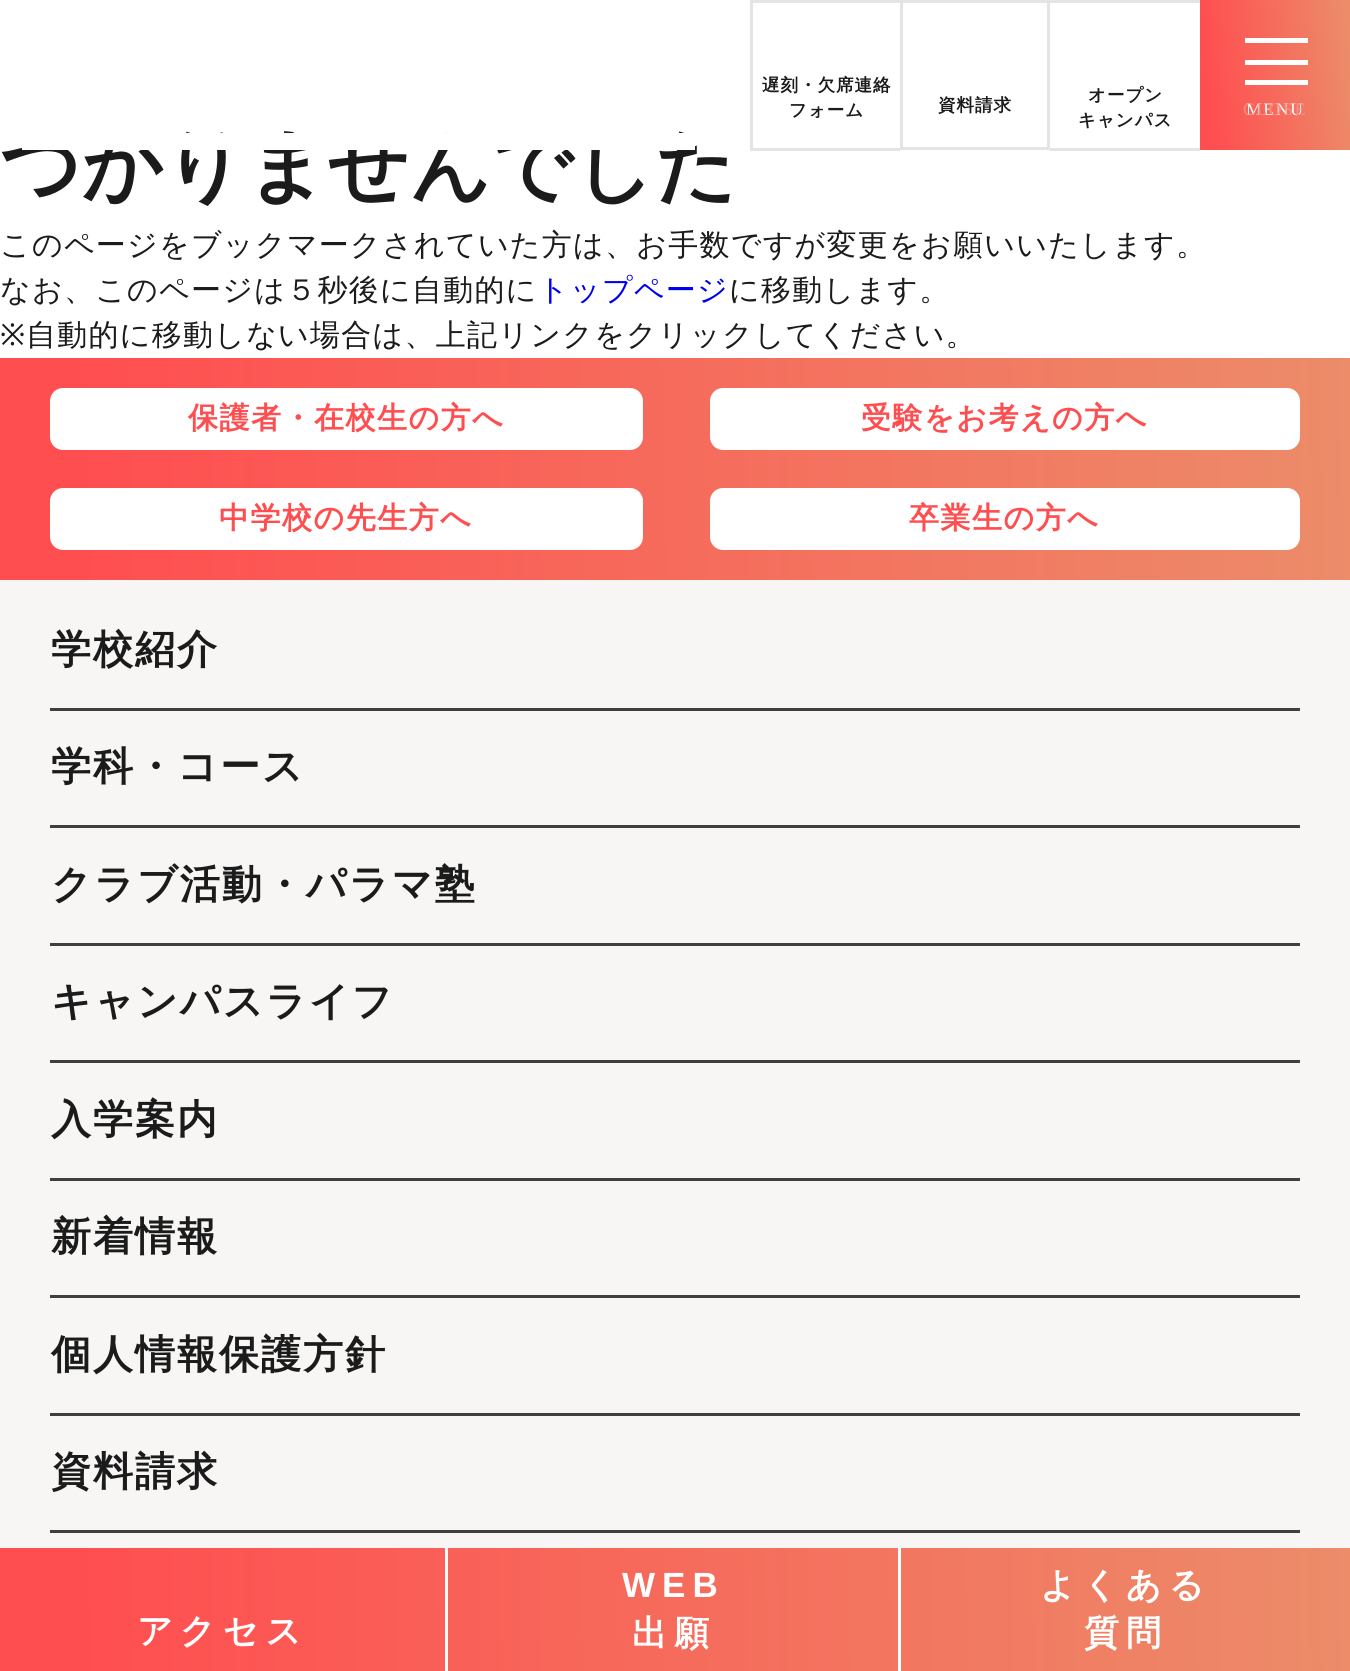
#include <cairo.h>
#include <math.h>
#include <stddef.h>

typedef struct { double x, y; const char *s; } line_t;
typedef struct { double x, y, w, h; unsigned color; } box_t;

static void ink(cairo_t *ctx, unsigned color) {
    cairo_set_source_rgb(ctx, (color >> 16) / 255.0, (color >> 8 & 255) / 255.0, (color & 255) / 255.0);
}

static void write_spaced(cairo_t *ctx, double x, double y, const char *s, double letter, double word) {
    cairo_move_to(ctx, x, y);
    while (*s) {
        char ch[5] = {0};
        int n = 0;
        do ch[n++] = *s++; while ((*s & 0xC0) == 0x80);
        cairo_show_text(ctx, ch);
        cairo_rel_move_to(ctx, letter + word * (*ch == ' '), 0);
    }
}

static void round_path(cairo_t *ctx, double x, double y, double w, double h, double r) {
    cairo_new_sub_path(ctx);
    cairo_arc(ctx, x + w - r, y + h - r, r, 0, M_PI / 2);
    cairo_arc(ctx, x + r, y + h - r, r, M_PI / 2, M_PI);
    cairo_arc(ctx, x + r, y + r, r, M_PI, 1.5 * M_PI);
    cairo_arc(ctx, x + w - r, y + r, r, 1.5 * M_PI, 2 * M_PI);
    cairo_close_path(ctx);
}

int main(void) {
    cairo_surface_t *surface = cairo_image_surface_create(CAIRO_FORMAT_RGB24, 1350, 1671);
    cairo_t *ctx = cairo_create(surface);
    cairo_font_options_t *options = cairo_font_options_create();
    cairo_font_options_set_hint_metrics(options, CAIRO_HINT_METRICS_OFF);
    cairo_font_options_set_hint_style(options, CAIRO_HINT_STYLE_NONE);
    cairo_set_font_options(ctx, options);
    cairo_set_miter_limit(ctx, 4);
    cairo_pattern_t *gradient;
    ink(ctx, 0xFFFFFF);
    cairo_paint(ctx);
    cairo_select_font_face(ctx, "WenQuanYi Zen Hei", CAIRO_FONT_SLANT_NORMAL, CAIRO_FONT_WEIGHT_BOLD);
    cairo_set_font_size(ctx, 80);
    ink(ctx, 0x1B1B1B);
    cairo_move_to(ctx, 0, 193);
    cairo_show_text(ctx, "つかりませんでした");
    {
        static const box_t items[] = {
            {22, 133, 673, 17, 0xFFFFFF},
            {750, 0, 150, 3, 0xE5E3E3},
            {750, 148, 150, 3, 0xE5E3E3},
            {750, 0, 3, 150, 0xE5E3E3},
        };
        for (size_t i = 0; i < sizeof items / sizeof *items; i++) {
            ink(ctx, items[i].color);
            cairo_rectangle(ctx, items[i].x, items[i].y, items[i].w, items[i].h);
            cairo_fill(ctx);
        }
    }
    cairo_set_font_size(ctx, 17.5);
    ink(ctx, 0x1B1B1B);
    write_spaced(ctx, 762, 91, "遅刻・欠席連絡", 1, 0);
    write_spaced(ctx, 789, 116, "フォーム", 1, 0);
    cairo_rectangle(ctx, 901.5, 1.5, 147, 147);
    ink(ctx, 0xE5E3E3);
    cairo_set_line_width(ctx, 3);
    cairo_stroke(ctx);
    ink(ctx, 0x1B1B1B);
    write_spaced(ctx, 938, 111, "資料請求", 1, 0);
    ink(ctx, 0xE5E3E3);
    cairo_rectangle(ctx, 1050, 0, 150, 3);
    cairo_fill(ctx);
    cairo_rectangle(ctx, 1050, 148, 150, 3);
    cairo_fill(ctx);
    ink(ctx, 0x1B1B1B);
    write_spaced(ctx, 1088, 101, "オープン", 1, 0);
    write_spaced(ctx, 1078, 126, "キャンパス", 1, 0);
    gradient = cairo_pattern_create_linear(1193, 84, 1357, 66);
    cairo_pattern_add_color_stop_rgba(gradient, 0.09, 1, 0.306, 0.314, 1);
    cairo_pattern_add_color_stop_rgba(gradient, 0.97, 0.925, 0.549, 0.412, 1);
    cairo_set_source(ctx, gradient);
    cairo_pattern_destroy(gradient);
    cairo_rectangle(ctx, 1200, 0, 150, 150);
    cairo_fill(ctx);
    {
        static const box_t items[] = {
            {1245, 38, 63, 5, 0xFFFFFF},
            {1245, 60, 63, 5, 0xFFFFFF},
            {1245, 80, 63, 5, 0xFFFFFF},
        };
        for (size_t i = 0; i < sizeof items / sizeof *items; i++) {
            ink(ctx, items[i].color);
            cairo_rectangle(ctx, items[i].x, items[i].y, items[i].w, items[i].h);
            cairo_fill(ctx);
        }
    }
    cairo_select_font_face(ctx, "Liberation Serif", CAIRO_FONT_SLANT_NORMAL, CAIRO_FONT_WEIGHT_NORMAL);
    write_spaced(ctx, 1246, 115, "MENU", 1.75, 0);
    ink(ctx, 0xF88E83);
    write_spaced(ctx, 1243, 115, "CLOSE", 1.75, 0);
    cairo_select_font_face(ctx, "WenQuanYi Zen Hei Medium", CAIRO_FONT_SLANT_NORMAL, CAIRO_FONT_WEIGHT_NORMAL);
    cairo_set_font_size(ctx, 30);
    ink(ctx, 0x1B1B1B);
    write_spaced(ctx, 0, 255, "このページをブックマークされていた方は、お手数ですが変更をお願いいたします。", 1.25, 0);
    write_spaced(ctx, 0, 300, "なお、このページは５秒後に自動的に", 1.25, 0);
    ink(ctx, 0x0000EE);
    write_spaced(ctx, 538, 300, "トップページ", 1.25, 0);
    ink(ctx, 0x1B1B1B);
    write_spaced(ctx, 729, 300, "に移動します。", 1.25, 0);
    cairo_select_font_face(ctx, "Noto Sans", CAIRO_FONT_SLANT_NORMAL, CAIRO_FONT_WEIGHT_NORMAL);
    write_spaced(ctx, 0, 345, "※", 1.25, 0);
    cairo_select_font_face(ctx, "WenQuanYi Zen Hei Medium", CAIRO_FONT_SLANT_NORMAL, CAIRO_FONT_WEIGHT_NORMAL);
    write_spaced(ctx, 26, 345, "自動的に移動しない場合は、上記リンクをクリックしてください。", 1.25, 0);
    gradient = cairo_pattern_create_linear(-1.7, 481, 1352, 457);
    cairo_pattern_add_color_stop_rgba(gradient, 0.06, 1, 0.306, 0.314, 1);
    cairo_pattern_add_color_stop_rgba(gradient, 1, 0.925, 0.549, 0.412, 1);
    cairo_set_source(ctx, gradient);
    cairo_pattern_destroy(gradient);
    cairo_rectangle(ctx, 0, 358, 1350, 222);
    cairo_fill(ctx);
    ink(ctx, 0xFFFFFF);
    round_path(ctx, 50, 388, 593, 62, 13);
    cairo_fill(ctx);
    cairo_select_font_face(ctx, "WenQuanYi Zen Hei", CAIRO_FONT_SLANT_NORMAL, CAIRO_FONT_WEIGHT_BOLD);
    ink(ctx, 0xFF4E50);
    write_spaced(ctx, 188, 428, "保護者・在校生の方へ", 1.5, 0);
    ink(ctx, 0xFFFFFF);
    round_path(ctx, 710, 388, 590, 62, 13);
    cairo_fill(ctx);
    ink(ctx, 0xFF4E50);
    write_spaced(ctx, 861, 428, "受験をお考えの方へ", 1.5, 0);
    ink(ctx, 0xFFFFFF);
    round_path(ctx, 50, 488, 593, 62, 13);
    cairo_fill(ctx);
    ink(ctx, 0xFF4E50);
    write_spaced(ctx, 219, 528, "中学校の先生方へ", 1.5, 0);
    ink(ctx, 0xFFFFFF);
    round_path(ctx, 710, 488, 590, 62, 13);
    cairo_fill(ctx);
    ink(ctx, 0xFF4E50);
    write_spaced(ctx, 909, 528, "卒業生の方へ", 1.5, 0);
    ink(ctx, 0xF7F6F4);
    cairo_rectangle(ctx, 0, 580, 1350, 968);
    cairo_fill(ctx);
    ink(ctx, 0x3F3F3F);
    cairo_rectangle(ctx, 50, 708, 1250, 3);
    cairo_fill(ctx);
    cairo_set_font_size(ctx, 40);
    ink(ctx, 0x1B1B1B);
    write_spaced(ctx, 51, 663, "学校紹介", 2, 0);
    ink(ctx, 0x3F3F3F);
    cairo_rectangle(ctx, 50, 825, 1250, 3);
    cairo_fill(ctx);
    ink(ctx, 0x1B1B1B);
    write_spaced(ctx, 51, 780, "学科・コース", 2, 0);
    ink(ctx, 0x3F3F3F);
    cairo_rectangle(ctx, 50, 943, 1250, 3);
    cairo_fill(ctx);
    ink(ctx, 0x1B1B1B);
    write_spaced(ctx, 51, 898, "クラブ活動・パラマ塾", 2, 0);
    ink(ctx, 0x3F3F3F);
    cairo_rectangle(ctx, 50, 1060, 1250, 3);
    cairo_fill(ctx);
    ink(ctx, 0x1B1B1B);
    write_spaced(ctx, 51, 1015, "キャンパスライフ", 2, 0);
    ink(ctx, 0x3F3F3F);
    cairo_rectangle(ctx, 50, 1178, 1250, 3);
    cairo_fill(ctx);
    ink(ctx, 0x1B1B1B);
    write_spaced(ctx, 51, 1133, "入学案内", 2, 0);
    ink(ctx, 0x3F3F3F);
    cairo_rectangle(ctx, 50, 1295, 1250, 3);
    cairo_fill(ctx);
    ink(ctx, 0x1B1B1B);
    write_spaced(ctx, 51, 1250, "新着情報", 2, 0);
    ink(ctx, 0x3F3F3F);
    cairo_rectangle(ctx, 50, 1413, 1250, 3);
    cairo_fill(ctx);
    ink(ctx, 0x1B1B1B);
    write_spaced(ctx, 51, 1368, "個人情報保護方針", 2, 0);
    ink(ctx, 0x3F3F3F);
    cairo_rectangle(ctx, 50, 1530, 1250, 3);
    cairo_fill(ctx);
    ink(ctx, 0x1B1B1B);
    write_spaced(ctx, 51, 1485, "資料請求", 2, 0);
    gradient = cairo_pattern_create_linear(-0.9, 1622, 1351, 1598);
    cairo_pattern_add_color_stop_rgba(gradient, 0.06, 1, 0.306, 0.314, 1);
    cairo_pattern_add_color_stop_rgba(gradient, 1, 0.925, 0.549, 0.412, 1);
    cairo_set_source(ctx, gradient);
    cairo_pattern_destroy(gradient);
    cairo_rectangle(ctx, 0, 1548, 1350, 123);
    cairo_fill(ctx);
    ink(ctx, 0xFFFFFF);
    cairo_rectangle(ctx, 445, 1548, 3, 123);
    cairo_fill(ctx);
    cairo_set_font_size(ctx, 35);
    write_spaced(ctx, 137, 1643, "アクセス", 7, 0);
    cairo_rectangle(ctx, 898, 1548, 3, 123);
    cairo_fill(ctx);
    cairo_select_font_face(ctx, "Liberation Sans", CAIRO_FONT_SLANT_NORMAL, CAIRO_FONT_WEIGHT_BOLD);
    write_spaced(ctx, 622, 1597, "WEB", 7, 0);
    cairo_select_font_face(ctx, "WenQuanYi Zen Hei", CAIRO_FONT_SLANT_NORMAL, CAIRO_FONT_WEIGHT_BOLD);
    {
        static const line_t items[] = {
            {632, 1645, "出願"},
            {1040, 1597, "よくある"},
            {1084, 1645, "質問"},
        };
        for (size_t i = 0; i < sizeof items / sizeof *items; i++) {
            write_spaced(ctx, items[i].x, items[i].y, items[i].s, 7, 0);
        }
    }
    cairo_surface_write_to_png(surface, "image.png");
    cairo_font_options_destroy(options);
    cairo_destroy(ctx);
    cairo_surface_destroy(surface);
    return 0;
}
